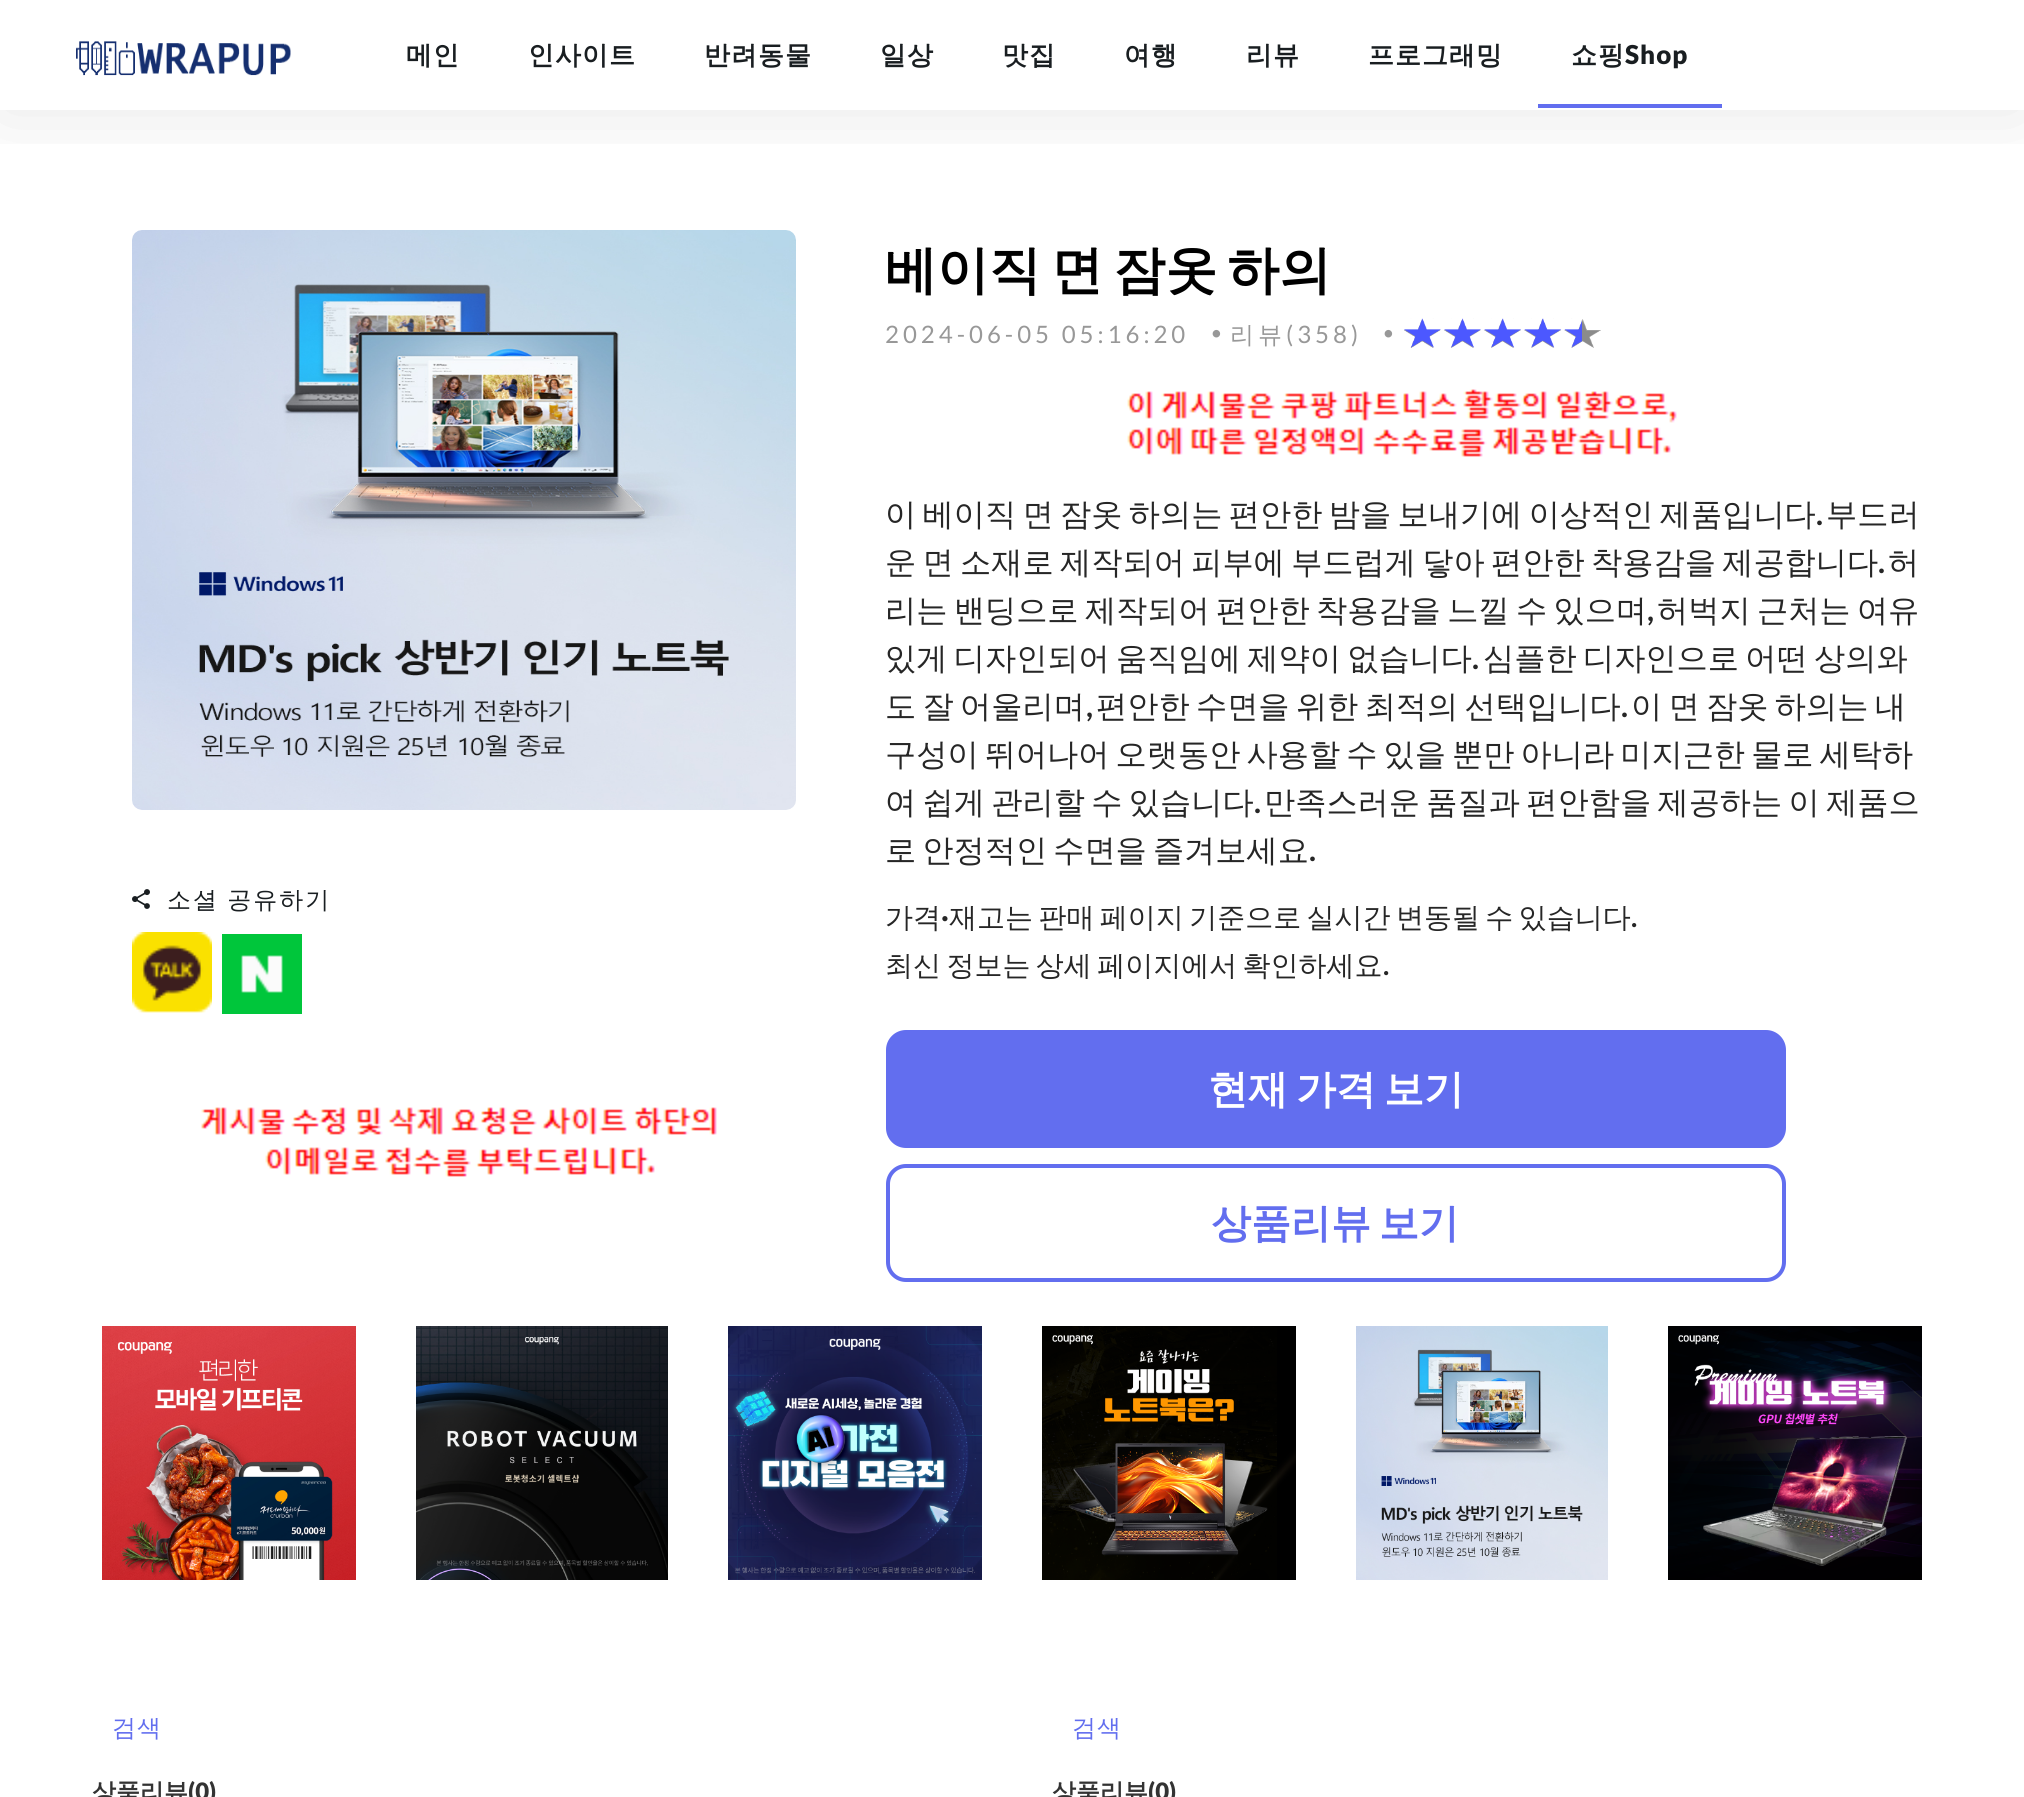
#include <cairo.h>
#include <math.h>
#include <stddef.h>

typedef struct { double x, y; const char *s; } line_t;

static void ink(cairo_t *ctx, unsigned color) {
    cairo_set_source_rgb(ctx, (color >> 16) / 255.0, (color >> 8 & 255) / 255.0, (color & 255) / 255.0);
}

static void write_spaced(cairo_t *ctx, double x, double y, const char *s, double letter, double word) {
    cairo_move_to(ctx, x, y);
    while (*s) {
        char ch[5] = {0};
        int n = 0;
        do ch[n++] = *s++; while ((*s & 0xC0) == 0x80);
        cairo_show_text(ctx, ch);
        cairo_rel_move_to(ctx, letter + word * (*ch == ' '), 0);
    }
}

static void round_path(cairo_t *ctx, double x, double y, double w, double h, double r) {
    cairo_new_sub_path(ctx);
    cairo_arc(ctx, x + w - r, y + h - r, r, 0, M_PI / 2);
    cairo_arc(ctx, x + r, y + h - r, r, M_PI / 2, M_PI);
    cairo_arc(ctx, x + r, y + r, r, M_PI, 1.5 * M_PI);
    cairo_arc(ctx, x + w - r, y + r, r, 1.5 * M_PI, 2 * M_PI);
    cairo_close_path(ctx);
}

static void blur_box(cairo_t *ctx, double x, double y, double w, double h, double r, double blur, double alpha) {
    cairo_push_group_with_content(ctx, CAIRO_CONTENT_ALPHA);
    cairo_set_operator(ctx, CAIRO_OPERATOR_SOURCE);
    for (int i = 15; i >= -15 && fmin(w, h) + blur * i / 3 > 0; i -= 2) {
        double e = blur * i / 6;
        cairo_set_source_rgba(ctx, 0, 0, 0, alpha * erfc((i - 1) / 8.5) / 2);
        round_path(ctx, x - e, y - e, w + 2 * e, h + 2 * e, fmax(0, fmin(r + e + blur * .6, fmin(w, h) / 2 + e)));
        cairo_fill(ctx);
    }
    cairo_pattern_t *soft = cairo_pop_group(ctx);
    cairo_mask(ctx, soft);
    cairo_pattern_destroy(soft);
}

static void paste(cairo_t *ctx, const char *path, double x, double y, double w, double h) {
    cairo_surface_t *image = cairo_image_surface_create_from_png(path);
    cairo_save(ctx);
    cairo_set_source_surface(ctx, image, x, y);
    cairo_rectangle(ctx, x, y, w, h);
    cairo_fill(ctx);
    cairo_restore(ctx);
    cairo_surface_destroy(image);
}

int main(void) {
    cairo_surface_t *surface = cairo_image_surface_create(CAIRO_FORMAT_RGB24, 2024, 1797);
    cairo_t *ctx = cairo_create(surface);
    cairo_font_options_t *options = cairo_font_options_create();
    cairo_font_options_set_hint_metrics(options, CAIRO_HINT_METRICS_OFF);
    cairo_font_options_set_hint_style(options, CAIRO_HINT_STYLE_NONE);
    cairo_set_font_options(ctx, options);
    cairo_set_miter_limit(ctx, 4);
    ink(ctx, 0xFFFFFF);
    cairo_paint(ctx);
    paste(ctx, "media/2.png", 132, 230, 664, 580);
    cairo_save(ctx);
    cairo_rectangle(ctx, 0, 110, 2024, 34);
    cairo_clip(ctx);
    ink(ctx, 0x000000);
    blur_box(ctx, 0, 0, 2024, 110, 0, 40, 0.1);
    cairo_restore(ctx);
    paste(ctx, "media/1.png", 76, 40, 215, 36);
    cairo_select_font_face(ctx, "WenQuanYi Zen Hei", CAIRO_FONT_SLANT_NORMAL, CAIRO_FONT_WEIGHT_BOLD);
    cairo_set_font_size(ctx, 26);
    ink(ctx, 0x191E21);
    {
        static const line_t items[] = {
            {406, 64, "메인"},
            {528, 64, "인사이트"},
            {704, 64, "반려동물"},
            {880, 64, "일상"},
            {1002, 64, "맛집"},
            {1124, 64, "여행"},
            {1246, 64, "리뷰"},
            {1368, 64, "프로그래밍"},
            {1571, 64, "쇼핑"},
        };
        for (size_t i = 0; i < sizeof items / sizeof *items; i++) {
            write_spaced(ctx, items[i].x, items[i].y, items[i].s, 1, 0);
        }
    }
    cairo_select_font_face(ctx, "Lato Black", CAIRO_FONT_SLANT_NORMAL, CAIRO_FONT_WEIGHT_NORMAL);
    write_spaced(ctx, 1625, 64, "Shop", 1, 0);
    ink(ctx, 0x626EEF);
    cairo_rectangle(ctx, 1538, 104, 184, 4);
    cairo_fill(ctx);
    paste(ctx, "media/3.png", 132, 889, 18, 20);
    cairo_select_font_face(ctx, "WenQuanYi Zen Hei Medium", CAIRO_FONT_SLANT_NORMAL, CAIRO_FONT_WEIGHT_NORMAL);
    cairo_set_font_size(ctx, 24);
    ink(ctx, 0x191E21);
    write_spaced(ctx, 167, 908, "소셜 공유하기", 2, -1);
    paste(ctx, "media/4.png", 132, 932, 80, 81);
    paste(ctx, "media/5.png", 222, 934, 80, 80);
    paste(ctx, "media/6.png", 201, 1107, 516, 70);
    cairo_select_font_face(ctx, "WenQuanYi Zen Hei", CAIRO_FONT_SLANT_NORMAL, CAIRO_FONT_WEIGHT_BOLD);
    cairo_set_font_size(ctx, 52);
    ink(ctx, 0x000000);
    write_spaced(ctx, 885, 288, "베이직 면 잠옷 하의", 0, -5.5);
    cairo_select_font_face(ctx, "Lato", CAIRO_FONT_SLANT_NORMAL, CAIRO_FONT_WEIGHT_NORMAL);
    cairo_set_font_size(ctx, 24);
    ink(ctx, 0x989898);
    write_spaced(ctx, 885, 343, "2024-06-05 05:16:20", 4, 0);
    cairo_set_font_size(ctx, 60);
    write_spaced(ctx, 1210, 337, ".", 4, 0);
    cairo_select_font_face(ctx, "WenQuanYi Zen Hei Medium", CAIRO_FONT_SLANT_NORMAL, CAIRO_FONT_WEIGHT_NORMAL);
    cairo_set_font_size(ctx, 24);
    write_spaced(ctx, 1230, 343, "리뷰", 4, 0);
    cairo_select_font_face(ctx, "Lato", CAIRO_FONT_SLANT_NORMAL, CAIRO_FONT_WEIGHT_NORMAL);
    write_spaced(ctx, 1286, 343, "(358)", 4, 0);
    cairo_set_font_size(ctx, 60);
    write_spaced(ctx, 1382, 337, ".", 4, 0);
    paste(ctx, "media/7.png", 1404, 319, 197, 29);
    paste(ctx, "media/8.png", 1404, 318, 178, 30);
    paste(ctx, "media/9.png", 1127, 389, 550, 68);
    cairo_select_font_face(ctx, "WenQuanYi Zen Hei Medium", CAIRO_FONT_SLANT_NORMAL, CAIRO_FONT_WEIGHT_NORMAL);
    cairo_set_font_size(ctx, 31.2);
    ink(ctx, 0x262626);
    write_spaced(ctx, 885, 525, "이 베이직 면 잠옷 하의는 편안한 밤을 보내기에 이상적인 제품입니다", 0, -3);
    cairo_select_font_face(ctx, "Lato", CAIRO_FONT_SLANT_NORMAL, CAIRO_FONT_WEIGHT_BOLD);
    cairo_move_to(ctx, 1816, 525);
    cairo_show_text(ctx, ".");
    cairo_select_font_face(ctx, "WenQuanYi Zen Hei Medium", CAIRO_FONT_SLANT_NORMAL, CAIRO_FONT_WEIGHT_NORMAL);
    cairo_move_to(ctx, 1826, 525);
    cairo_show_text(ctx, "부드러");
    write_spaced(ctx, 885, 573, "운 면 소재로 제작되어 피부에 부드럽게 닿아 편안한 착용감을 제공합니다", 0, -3);
    cairo_select_font_face(ctx, "Lato", CAIRO_FONT_SLANT_NORMAL, CAIRO_FONT_WEIGHT_BOLD);
    cairo_move_to(ctx, 1878, 573);
    cairo_show_text(ctx, ".");
    cairo_select_font_face(ctx, "WenQuanYi Zen Hei Medium", CAIRO_FONT_SLANT_NORMAL, CAIRO_FONT_WEIGHT_NORMAL);
    cairo_move_to(ctx, 1888, 573);
    cairo_show_text(ctx, "허");
    write_spaced(ctx, 885, 621, "리는 밴딩으로 제작되어 편안한 착용감을 느낄 수 있으며", 0, -3);
    cairo_select_font_face(ctx, "Lato", CAIRO_FONT_SLANT_NORMAL, CAIRO_FONT_WEIGHT_BOLD);
    cairo_move_to(ctx, 1647, 621);
    cairo_show_text(ctx, ",");
    cairo_select_font_face(ctx, "WenQuanYi Zen Hei Medium", CAIRO_FONT_SLANT_NORMAL, CAIRO_FONT_WEIGHT_NORMAL);
    write_spaced(ctx, 1657, 621, "허벅지 근처는 여유", 0, -3);
    write_spaced(ctx, 885, 669, "있게 디자인되어 움직임에 제약이 없습니다", 0, -3);
    cairo_select_font_face(ctx, "Lato", CAIRO_FONT_SLANT_NORMAL, CAIRO_FONT_WEIGHT_BOLD);
    cairo_move_to(ctx, 1472, 669);
    cairo_show_text(ctx, ".");
    cairo_select_font_face(ctx, "WenQuanYi Zen Hei Medium", CAIRO_FONT_SLANT_NORMAL, CAIRO_FONT_WEIGHT_NORMAL);
    write_spaced(ctx, 1483, 669, "심플한 디자인으로 어떤 상의와", 0, -3);
    write_spaced(ctx, 885, 717, "도 잘 어울리며", 0, -3);
    cairo_select_font_face(ctx, "Lato", CAIRO_FONT_SLANT_NORMAL, CAIRO_FONT_WEIGHT_BOLD);
    cairo_move_to(ctx, 1086, 717);
    cairo_show_text(ctx, ",");
    cairo_select_font_face(ctx, "WenQuanYi Zen Hei Medium", CAIRO_FONT_SLANT_NORMAL, CAIRO_FONT_WEIGHT_NORMAL);
    write_spaced(ctx, 1096, 717, "편안한 수면을 위한 최적의 선택입니다", 0, -3);
    cairo_select_font_face(ctx, "Lato", CAIRO_FONT_SLANT_NORMAL, CAIRO_FONT_WEIGHT_BOLD);
    cairo_move_to(ctx, 1621, 717);
    cairo_show_text(ctx, ".");
    cairo_select_font_face(ctx, "WenQuanYi Zen Hei Medium", CAIRO_FONT_SLANT_NORMAL, CAIRO_FONT_WEIGHT_NORMAL);
    write_spaced(ctx, 1631, 717, "이 면 잠옷 하의는 내", 0, -3);
    write_spaced(ctx, 885, 765, "구성이 뛰어나어 오랫동안 사용할 수 있을 뿐만 아니라 미지근한 물로 세탁하", 0, -3.25);
    write_spaced(ctx, 885, 813, "여 쉽게 관리할 수 있습니다", 0, -3);
    cairo_select_font_face(ctx, "Lato", CAIRO_FONT_SLANT_NORMAL, CAIRO_FONT_WEIGHT_BOLD);
    cairo_move_to(ctx, 1254, 813);
    cairo_show_text(ctx, ".");
    cairo_select_font_face(ctx, "WenQuanYi Zen Hei Medium", CAIRO_FONT_SLANT_NORMAL, CAIRO_FONT_WEIGHT_NORMAL);
    write_spaced(ctx, 1264, 813, "만족스러운 품질과 편안함을 제공하는 이 제품으", 0, -3);
    write_spaced(ctx, 885, 861, "로 안정적인 수면을 즐겨보세요", 0, -3.25);
    cairo_select_font_face(ctx, "Lato", CAIRO_FONT_SLANT_NORMAL, CAIRO_FONT_WEIGHT_BOLD);
    cairo_move_to(ctx, 1309, 861);
    cairo_show_text(ctx, ".");
    cairo_select_font_face(ctx, "WenQuanYi Zen Hei Medium", CAIRO_FONT_SLANT_NORMAL, CAIRO_FONT_WEIGHT_NORMAL);
    cairo_set_font_size(ctx, 28);
    cairo_move_to(ctx, 885, 927);
    cairo_show_text(ctx, "가격");
    cairo_select_font_face(ctx, "Lato", CAIRO_FONT_SLANT_NORMAL, CAIRO_FONT_WEIGHT_BOLD);
    cairo_move_to(ctx, 941, 927);
    cairo_show_text(ctx, "·");
    cairo_select_font_face(ctx, "WenQuanYi Zen Hei Medium", CAIRO_FONT_SLANT_NORMAL, CAIRO_FONT_WEIGHT_NORMAL);
    write_spaced(ctx, 949, 927, "재고는 판매 페이지 기준으로 실시간 변동될 수 있습니다", 0, -3);
    cairo_select_font_face(ctx, "Lato", CAIRO_FONT_SLANT_NORMAL, CAIRO_FONT_WEIGHT_BOLD);
    cairo_move_to(ctx, 1631, 927);
    cairo_show_text(ctx, ".");
    cairo_select_font_face(ctx, "WenQuanYi Zen Hei Medium", CAIRO_FONT_SLANT_NORMAL, CAIRO_FONT_WEIGHT_NORMAL);
    write_spaced(ctx, 885, 975, "최신 정보는 상세 페이지에서 확인하세요", 0, -3);
    cairo_select_font_face(ctx, "Lato", CAIRO_FONT_SLANT_NORMAL, CAIRO_FONT_WEIGHT_BOLD);
    cairo_move_to(ctx, 1383, 975);
    cairo_show_text(ctx, ".");
    ink(ctx, 0x626EEF);
    round_path(ctx, 888, 1032, 896, 114, 18);
    cairo_fill_preserve(ctx);
    cairo_set_line_width(ctx, 4);
    cairo_stroke(ctx);
    cairo_select_font_face(ctx, "WenQuanYi Zen Hei", CAIRO_FONT_SLANT_NORMAL, CAIRO_FONT_WEIGHT_BOLD);
    cairo_set_font_size(ctx, 40);
    ink(ctx, 0xFFFFFF);
    write_spaced(ctx, 1208, 1103, "현재 가격 보기", 0, -4);
    round_path(ctx, 888, 1166, 896, 114, 18);
    ink(ctx, 0x626EEF);
    cairo_stroke(ctx);
    write_spaced(ctx, 1211, 1237, "상품리뷰 보기", 0, -4);
    paste(ctx, "media/10.png", 102, 1326, 254, 254);
    paste(ctx, "media/11.png", 416, 1326, 252, 254);
    paste(ctx, "media/12.png", 728, 1326, 254, 254);
    paste(ctx, "media/13.png", 1042, 1326, 254, 254);
    paste(ctx, "media/14.png", 1356, 1326, 252, 254);
    paste(ctx, "media/15.png", 1668, 1326, 254, 254);
    cairo_select_font_face(ctx, "WenQuanYi Zen Hei Medium", CAIRO_FONT_SLANT_NORMAL, CAIRO_FONT_WEIGHT_NORMAL);
    cairo_set_font_size(ctx, 24);
    write_spaced(ctx, 112, 1736, "검색", 1, 0);
    cairo_select_font_face(ctx, "WenQuanYi Zen Hei", CAIRO_FONT_SLANT_NORMAL, CAIRO_FONT_WEIGHT_BOLD);
    ink(ctx, 0x333333);
    cairo_move_to(ctx, 92, 1800);
    cairo_show_text(ctx, "상품리뷰");
    cairo_select_font_face(ctx, "Lato Black", CAIRO_FONT_SLANT_NORMAL, CAIRO_FONT_WEIGHT_NORMAL);
    cairo_move_to(ctx, 188, 1800);
    cairo_show_text(ctx, "(0)");
    cairo_select_font_face(ctx, "WenQuanYi Zen Hei Medium", CAIRO_FONT_SLANT_NORMAL, CAIRO_FONT_WEIGHT_NORMAL);
    ink(ctx, 0x626EEF);
    write_spaced(ctx, 1072, 1736, "검색", 1, 0);
    cairo_select_font_face(ctx, "WenQuanYi Zen Hei", CAIRO_FONT_SLANT_NORMAL, CAIRO_FONT_WEIGHT_BOLD);
    ink(ctx, 0x333333);
    cairo_move_to(ctx, 1052, 1800);
    cairo_show_text(ctx, "상품리뷰");
    cairo_select_font_face(ctx, "Lato Black", CAIRO_FONT_SLANT_NORMAL, CAIRO_FONT_WEIGHT_NORMAL);
    cairo_move_to(ctx, 1148, 1800);
    cairo_show_text(ctx, "(0)");
    cairo_surface_write_to_png(surface, "image.png");
    cairo_font_options_destroy(options);
    cairo_destroy(ctx);
    cairo_surface_destroy(surface);
    return 0;
}
